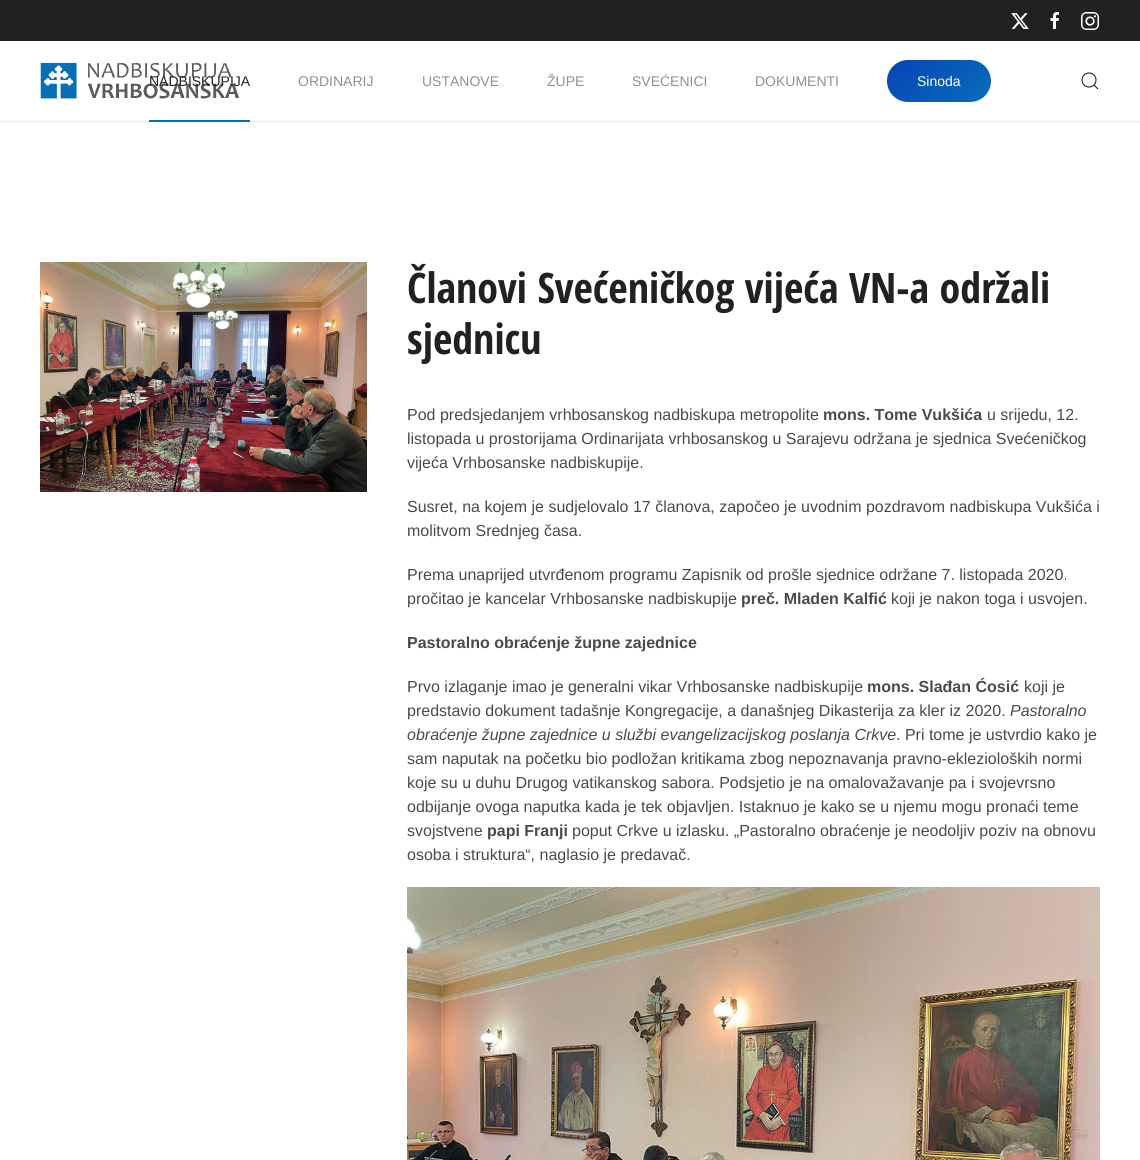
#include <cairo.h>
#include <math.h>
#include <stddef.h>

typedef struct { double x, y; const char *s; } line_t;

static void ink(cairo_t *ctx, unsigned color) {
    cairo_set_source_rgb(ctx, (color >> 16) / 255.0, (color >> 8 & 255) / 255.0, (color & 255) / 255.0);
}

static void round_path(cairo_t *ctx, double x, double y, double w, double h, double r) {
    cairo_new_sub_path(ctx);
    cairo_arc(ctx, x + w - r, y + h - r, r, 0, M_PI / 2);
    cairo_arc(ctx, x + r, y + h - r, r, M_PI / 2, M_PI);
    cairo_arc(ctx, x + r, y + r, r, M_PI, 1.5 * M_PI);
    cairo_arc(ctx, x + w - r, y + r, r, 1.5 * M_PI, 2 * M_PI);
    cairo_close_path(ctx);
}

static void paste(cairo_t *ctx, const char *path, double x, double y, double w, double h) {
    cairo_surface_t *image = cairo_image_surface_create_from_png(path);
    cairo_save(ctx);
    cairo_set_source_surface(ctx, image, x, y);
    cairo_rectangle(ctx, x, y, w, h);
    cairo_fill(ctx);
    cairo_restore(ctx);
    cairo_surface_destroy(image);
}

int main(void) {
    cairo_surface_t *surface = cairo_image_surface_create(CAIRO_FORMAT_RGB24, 1140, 1160);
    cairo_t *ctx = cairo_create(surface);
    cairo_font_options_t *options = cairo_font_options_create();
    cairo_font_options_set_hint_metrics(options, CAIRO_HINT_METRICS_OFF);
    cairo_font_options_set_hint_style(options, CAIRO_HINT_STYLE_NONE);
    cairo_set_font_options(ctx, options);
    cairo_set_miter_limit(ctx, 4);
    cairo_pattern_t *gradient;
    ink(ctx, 0xFFFFFF);
    cairo_paint(ctx);
    ink(ctx, 0x212121);
    cairo_rectangle(ctx, 0, 0, 1140, 41);
    cairo_fill(ctx);
    paste(ctx, "media/1.png", 1011, 13, 18, 16);
    paste(ctx, "media/2.png", 1050, 12, 9, 17);
    paste(ctx, "media/3.png", 1081, 12, 18, 18);
    ink(ctx, 0xEAEAEA);
    cairo_rectangle(ctx, 0, 121, 1140, 1);
    cairo_fill(ctx);
    paste(ctx, "media/4.png", 40, 62, 199, 37);
    cairo_select_font_face(ctx, "Liberation Sans", CAIRO_FONT_SLANT_NORMAL, CAIRO_FONT_WEIGHT_NORMAL);
    cairo_set_font_size(ctx, 14);
    ink(ctx, 0x212121);
    cairo_move_to(ctx, 149, 86);
    cairo_show_text(ctx, "NADBISKUPIJA");
    ink(ctx, 0x076FB7);
    cairo_rectangle(ctx, 149, 120, 101, 2);
    cairo_fill(ctx);
    ink(ctx, 0x909090);
    {
        static const line_t items[] = {
            {298, 86, "ORDINARIJ"},
            {422, 86, "USTANOVE"},
            {547, 86, "ŽUPE"},
            {632, 86, "SVEĆENICI"},
            {755, 86, "DOKUMENTI"},
        };
        for (size_t i = 0; i < sizeof items / sizeof *items; i++) {
            cairo_move_to(ctx, items[i].x, items[i].y);
            cairo_show_text(ctx, items[i].s);
        }
    }
    gradient = cairo_pattern_create_linear(971, 119, 907, 43);
    cairo_pattern_add_color_stop_rgba(gradient, 0, 0.027, 0.435, 0.718, 1);
    cairo_pattern_add_color_stop_rgba(gradient, 1, 0.027, 0.263, 0.718, 1);
    cairo_set_source(ctx, gradient);
    cairo_pattern_destroy(gradient);
    round_path(ctx, 887, 60, 104, 42, 21);
    cairo_fill(ctx);
    ink(ctx, 0xFFFFFF);
    cairo_move_to(ctx, 917, 86);
    cairo_show_text(ctx, "Sinoda");
    cairo_new_path(ctx);
    cairo_arc(ctx, 1089, 80, 7, 0, 2 * M_PI);
    ink(ctx, 0x212121);
    cairo_set_line_width(ctx, 1.1);
    cairo_stroke(ctx);
    cairo_new_path(ctx);
    cairo_move_to(ctx, 1094, 85);
    cairo_line_to(ctx, 1098, 89);
    cairo_close_path(ctx);
    cairo_stroke(ctx);
    paste(ctx, "media/5.png", 40, 262, 327, 230);
    cairo_select_font_face(ctx, "Open Sans Condensed", CAIRO_FONT_SLANT_NORMAL, CAIRO_FONT_WEIGHT_BOLD);
    cairo_set_font_size(ctx, 42);
    cairo_move_to(ctx, 407, 303);
    cairo_show_text(ctx, "Članovi Svećeničkog vijeća VN-a održali");
    cairo_move_to(ctx, 407, 354);
    cairo_show_text(ctx, "sjednicu");
    cairo_select_font_face(ctx, "Liberation Sans", CAIRO_FONT_SLANT_NORMAL, CAIRO_FONT_WEIGHT_NORMAL);
    cairo_set_font_size(ctx, 16);
    ink(ctx, 0x4A4A4A);
    cairo_move_to(ctx, 407, 420);
    cairo_show_text(ctx, "Pod predsjedanjem vrhbosanskog nadbiskupa metropolite");
    cairo_select_font_face(ctx, "Liberation Sans", CAIRO_FONT_SLANT_NORMAL, CAIRO_FONT_WEIGHT_BOLD);
    cairo_move_to(ctx, 823, 420);
    cairo_show_text(ctx, "mons. Tome Vukšića");
    cairo_select_font_face(ctx, "Liberation Sans", CAIRO_FONT_SLANT_NORMAL, CAIRO_FONT_WEIGHT_NORMAL);
    {
        static const line_t items[] = {
            {987, 420, "u srijedu, 12."},
            {407, 444, "listopada u prostorijama Ordinarijata vrhbosanskog u Sarajevu održana je sjednica Svećeničkog"},
            {407, 468, "vijeća Vrhbosanske nadbiskupije."},
            {407, 512, "Susret, na kojem je sudjelovalo 17 članova, započeo je uvodnim pozdravom nadbiskupa Vukšića i"},
            {407, 536, "molitvom Srednjeg časa."},
            {407, 580, "Prema unaprijed utvrđenom programu Zapisnik od prošle sjednice održane 7. listopada 2020."},
            {407, 604, "pročitao je kancelar Vrhbosanske nadbiskupije"},
        };
        for (size_t i = 0; i < sizeof items / sizeof *items; i++) {
            cairo_move_to(ctx, items[i].x, items[i].y);
            cairo_show_text(ctx, items[i].s);
        }
    }
    cairo_select_font_face(ctx, "Liberation Sans", CAIRO_FONT_SLANT_NORMAL, CAIRO_FONT_WEIGHT_BOLD);
    cairo_move_to(ctx, 741, 604);
    cairo_show_text(ctx, "preč. Mladen Kalfić");
    cairo_select_font_face(ctx, "Liberation Sans", CAIRO_FONT_SLANT_NORMAL, CAIRO_FONT_WEIGHT_NORMAL);
    cairo_move_to(ctx, 891, 604);
    cairo_show_text(ctx, "koji je nakon toga i usvojen.");
    cairo_select_font_face(ctx, "Liberation Sans", CAIRO_FONT_SLANT_NORMAL, CAIRO_FONT_WEIGHT_BOLD);
    cairo_move_to(ctx, 407, 648);
    cairo_show_text(ctx, "Pastoralno obraćenje župne zajednice");
    cairo_select_font_face(ctx, "Liberation Sans", CAIRO_FONT_SLANT_NORMAL, CAIRO_FONT_WEIGHT_NORMAL);
    cairo_move_to(ctx, 407, 692);
    cairo_show_text(ctx, "Prvo izlaganje imao je generalni vikar Vrhbosanske nadbiskupije");
    cairo_select_font_face(ctx, "Liberation Sans", CAIRO_FONT_SLANT_NORMAL, CAIRO_FONT_WEIGHT_BOLD);
    cairo_move_to(ctx, 867, 692);
    cairo_show_text(ctx, "mons. Slađan Ćosić");
    cairo_select_font_face(ctx, "Liberation Sans", CAIRO_FONT_SLANT_NORMAL, CAIRO_FONT_WEIGHT_NORMAL);
    cairo_move_to(ctx, 1024, 692);
    cairo_show_text(ctx, "koji je");
    cairo_move_to(ctx, 407, 716);
    cairo_show_text(ctx, "predstavio dokument tadašnje Kongregacije, a današnjeg Dikasterija za kler iz 2020.");
    cairo_select_font_face(ctx, "Liberation Sans", CAIRO_FONT_SLANT_ITALIC, CAIRO_FONT_WEIGHT_NORMAL);
    cairo_move_to(ctx, 1010, 716);
    cairo_show_text(ctx, "Pastoralno");
    cairo_move_to(ctx, 407, 740);
    cairo_show_text(ctx, "obraćenje župne zajednice u službi evangelizacijskog poslanja Crkve");
    cairo_select_font_face(ctx, "Liberation Sans", CAIRO_FONT_SLANT_NORMAL, CAIRO_FONT_WEIGHT_NORMAL);
    {
        static const line_t items[] = {
            {896, 740, ". Pri tome je ustvrdio kako je"},
            {407, 764, "sam naputak na početku bio podložan kritikama zbog nepoznavanja pravno-eklezioloških normi"},
            {407, 788, "koje su u duhu Drugog vatikanskog sabora. Podsjetio je na omalovažavanje pa i svojevrsno"},
            {407, 812, "odbijanje ovoga naputka kada je tek objavljen. Istaknuo je kako se u njemu mogu pronaći teme"},
            {407, 836, "svojstvene"},
        };
        for (size_t i = 0; i < sizeof items / sizeof *items; i++) {
            cairo_move_to(ctx, items[i].x, items[i].y);
            cairo_show_text(ctx, items[i].s);
        }
    }
    cairo_select_font_face(ctx, "Liberation Sans", CAIRO_FONT_SLANT_NORMAL, CAIRO_FONT_WEIGHT_BOLD);
    cairo_move_to(ctx, 487, 836);
    cairo_show_text(ctx, "papi Franji");
    cairo_select_font_face(ctx, "Liberation Sans", CAIRO_FONT_SLANT_NORMAL, CAIRO_FONT_WEIGHT_NORMAL);
    cairo_move_to(ctx, 572, 836);
    cairo_show_text(ctx, "poput Crkve u izlasku. „Pastoralno obraćenje je neodoljiv poziv na obnovu");
    cairo_move_to(ctx, 407, 860);
    cairo_show_text(ctx, "osoba i struktura“, naglasio je predavač.");
    paste(ctx, "media/6.png", 407, 887, 693, 273);
    cairo_surface_write_to_png(surface, "image.png");
    cairo_font_options_destroy(options);
    cairo_destroy(ctx);
    cairo_surface_destroy(surface);
    return 0;
}
